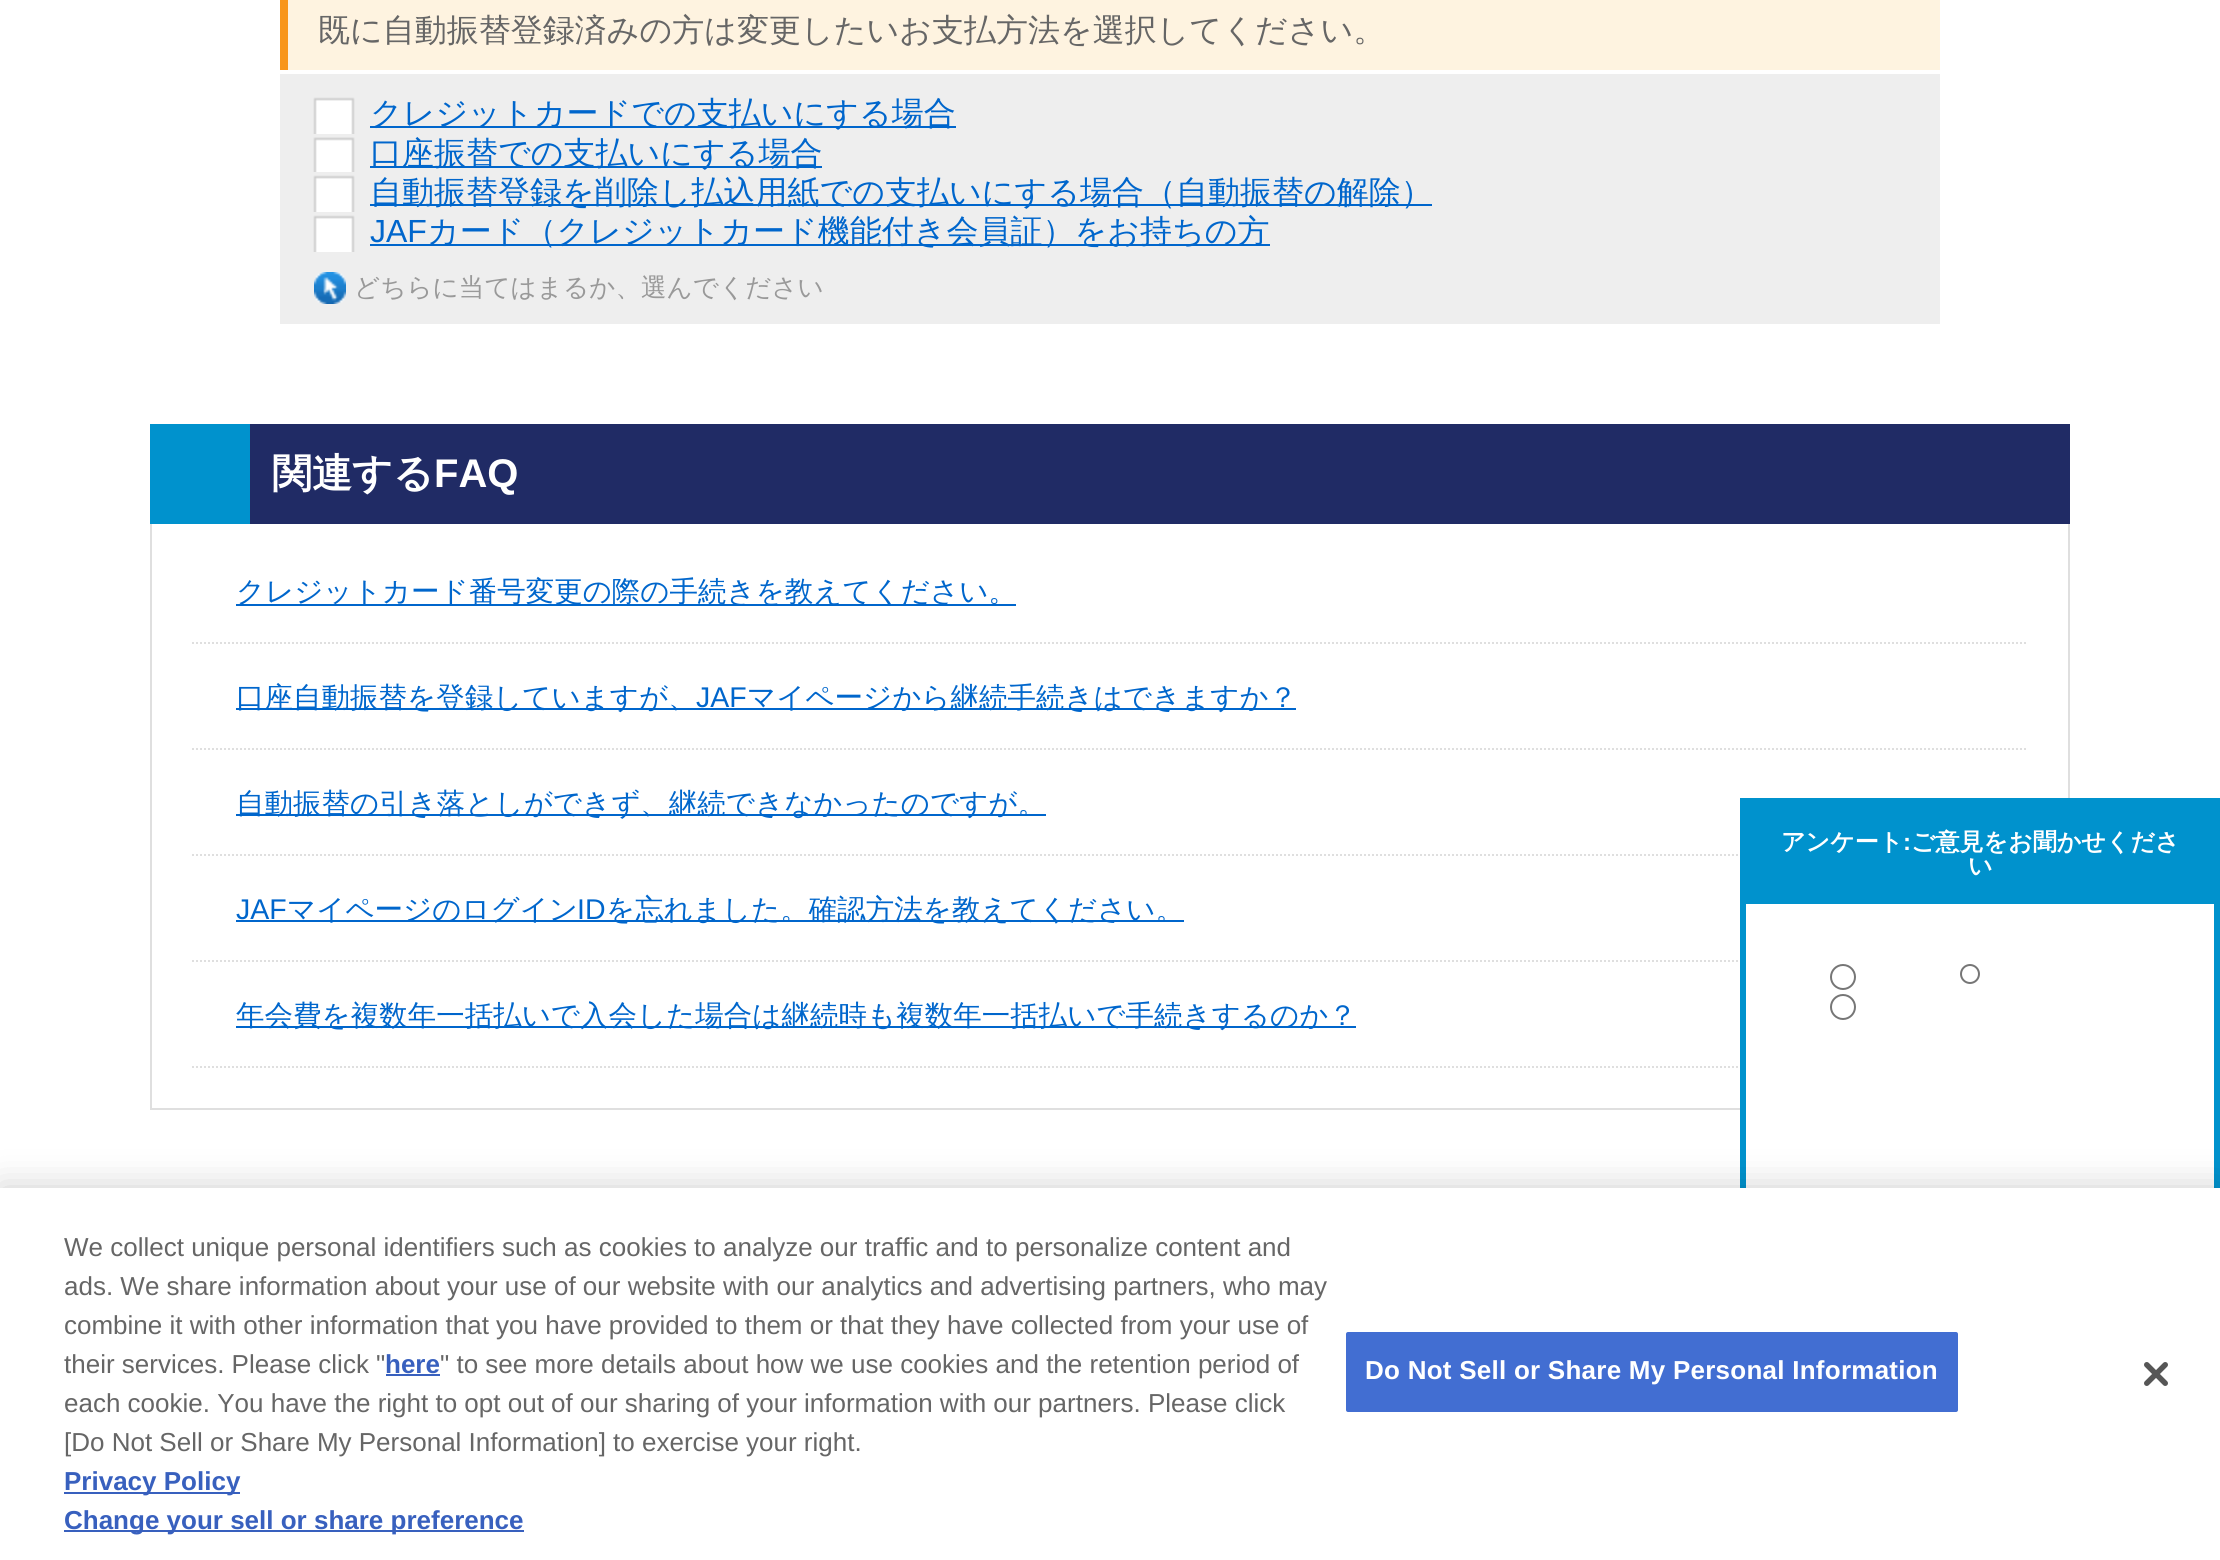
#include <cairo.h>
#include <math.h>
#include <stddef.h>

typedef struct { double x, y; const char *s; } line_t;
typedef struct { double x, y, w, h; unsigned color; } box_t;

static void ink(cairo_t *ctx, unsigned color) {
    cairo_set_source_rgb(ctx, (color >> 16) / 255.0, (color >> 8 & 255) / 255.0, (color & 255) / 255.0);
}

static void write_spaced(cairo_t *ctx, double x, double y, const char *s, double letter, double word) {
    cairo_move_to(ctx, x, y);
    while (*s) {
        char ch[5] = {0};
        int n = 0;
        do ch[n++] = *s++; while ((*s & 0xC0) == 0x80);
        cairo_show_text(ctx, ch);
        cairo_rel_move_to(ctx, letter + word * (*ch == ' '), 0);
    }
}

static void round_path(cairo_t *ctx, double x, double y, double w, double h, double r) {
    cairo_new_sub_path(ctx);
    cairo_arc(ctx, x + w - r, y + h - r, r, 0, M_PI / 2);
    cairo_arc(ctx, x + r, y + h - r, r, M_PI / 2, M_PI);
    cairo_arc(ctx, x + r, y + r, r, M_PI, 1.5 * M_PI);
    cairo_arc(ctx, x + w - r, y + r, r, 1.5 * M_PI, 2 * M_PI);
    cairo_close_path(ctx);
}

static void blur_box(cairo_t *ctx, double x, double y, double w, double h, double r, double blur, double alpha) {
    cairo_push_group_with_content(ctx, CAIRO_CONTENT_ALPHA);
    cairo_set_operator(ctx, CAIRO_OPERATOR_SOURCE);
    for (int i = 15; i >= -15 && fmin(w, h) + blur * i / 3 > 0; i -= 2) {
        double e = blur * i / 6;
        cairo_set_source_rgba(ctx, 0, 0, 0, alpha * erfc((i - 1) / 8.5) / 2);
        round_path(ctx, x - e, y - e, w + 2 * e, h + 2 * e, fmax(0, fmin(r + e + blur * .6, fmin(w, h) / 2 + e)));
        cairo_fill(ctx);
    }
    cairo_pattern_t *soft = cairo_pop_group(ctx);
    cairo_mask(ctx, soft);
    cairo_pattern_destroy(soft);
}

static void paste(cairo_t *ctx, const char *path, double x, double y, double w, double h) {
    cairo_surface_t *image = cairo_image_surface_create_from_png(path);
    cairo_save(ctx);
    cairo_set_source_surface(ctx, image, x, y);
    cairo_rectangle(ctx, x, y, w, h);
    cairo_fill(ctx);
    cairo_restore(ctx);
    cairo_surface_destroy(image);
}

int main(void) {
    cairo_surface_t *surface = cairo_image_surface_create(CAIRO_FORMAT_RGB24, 2220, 1560);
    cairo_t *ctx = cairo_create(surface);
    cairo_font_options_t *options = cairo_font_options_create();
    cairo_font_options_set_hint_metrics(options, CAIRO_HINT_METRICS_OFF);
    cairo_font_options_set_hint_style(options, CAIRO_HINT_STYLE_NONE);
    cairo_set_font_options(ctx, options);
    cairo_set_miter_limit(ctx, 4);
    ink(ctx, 0xFFFFFF);
    cairo_paint(ctx);
    ink(ctx, 0xFEF3E0);
    cairo_rectangle(ctx, 288, 0, 1652, 70);
    cairo_fill(ctx);
    ink(ctx, 0xF8961C);
    cairo_rectangle(ctx, 280, 0, 8, 70);
    cairo_fill(ctx);
    cairo_select_font_face(ctx, "WenQuanYi Zen Hei Medium", CAIRO_FONT_SLANT_NORMAL, CAIRO_FONT_WEIGHT_NORMAL);
    cairo_set_font_size(ctx, 32);
    ink(ctx, 0x666666);
    cairo_move_to(ctx, 318, 41);
    cairo_show_text(ctx, "既に自動振替登録済みの方は変更したいお支払方法を選択してください。");
    ink(ctx, 0xEEEEEE);
    cairo_rectangle(ctx, 280, 74, 1660, 250);
    cairo_fill(ctx);
    paste(ctx, "media/1.png", 313, 97, 42, 37);
    ink(ctx, 0x0066CC);
    cairo_rectangle(ctx, 370, 126, 586, 2);
    cairo_fill(ctx);
    cairo_move_to(ctx, 370, 124);
    cairo_show_text(ctx, "クレジットカードでの支払いにする場合");
    paste(ctx, "media/2.png", 313, 137, 42, 35);
    cairo_rectangle(ctx, 370, 166, 452, 2);
    cairo_fill(ctx);
    cairo_move_to(ctx, 370, 164);
    cairo_show_text(ctx, "口座振替での支払いにする場合");
    paste(ctx, "media/1.png", 313, 175, 42, 37);
    cairo_rectangle(ctx, 370, 204, 1062, 2);
    cairo_fill(ctx);
    cairo_move_to(ctx, 370, 203);
    cairo_show_text(ctx, "自動振替登録を削除し払込用紙での支払いにする場合（自動振替の解除）");
    paste(ctx, "media/1.png", 313, 215, 42, 37);
    cairo_select_font_face(ctx, "Liberation Sans", CAIRO_FONT_SLANT_NORMAL, CAIRO_FONT_WEIGHT_NORMAL);
    cairo_move_to(ctx, 370, 242);
    cairo_show_text(ctx, "JAF");
    cairo_rectangle(ctx, 370, 244, 900, 2);
    cairo_fill(ctx);
    cairo_select_font_face(ctx, "WenQuanYi Zen Hei Medium", CAIRO_FONT_SLANT_NORMAL, CAIRO_FONT_WEIGHT_NORMAL);
    cairo_move_to(ctx, 427, 242);
    cairo_show_text(ctx, "カード（クレジットカード機能付き会員証）をお持ちの方");
    paste(ctx, "media/3.png", 314, 272, 32, 32);
    cairo_set_font_size(ctx, 25.6);
    ink(ctx, 0x999999);
    cairo_move_to(ctx, 354, 296);
    cairo_show_text(ctx, "どちらに当てはまるか、選んでください");
    ink(ctx, 0x0092CD);
    cairo_rectangle(ctx, 150, 424, 100, 100);
    cairo_fill(ctx);
    ink(ctx, 0x202B65);
    cairo_rectangle(ctx, 250, 424, 1820, 100);
    cairo_fill(ctx);
    cairo_select_font_face(ctx, "WenQuanYi Zen Hei", CAIRO_FONT_SLANT_NORMAL, CAIRO_FONT_WEIGHT_BOLD);
    cairo_set_font_size(ctx, 40);
    ink(ctx, 0xFFFFFF);
    cairo_move_to(ctx, 272, 487);
    cairo_show_text(ctx, "関連する");
    cairo_select_font_face(ctx, "Liberation Sans", CAIRO_FONT_SLANT_NORMAL, CAIRO_FONT_WEIGHT_BOLD);
    cairo_move_to(ctx, 434, 487);
    cairo_show_text(ctx, "FAQ");
    {
        static const box_t items[] = {
            {2068, 524, 2, 274, 0xDFDFDF},
            {150, 1108, 1590, 2, 0xDFDFDF},
            {150, 524, 2, 586, 0xDFDFDF},
        };
        for (size_t i = 0; i < sizeof items / sizeof *items; i++) {
            ink(ctx, items[i].color);
            cairo_rectangle(ctx, items[i].x, items[i].y, items[i].w, items[i].h);
            cairo_fill(ctx);
        }
    }
    cairo_new_path(ctx);
    cairo_move_to(ctx, 192, 643);
    cairo_line_to(ctx, 2028, 643);
    cairo_set_dash(ctx, (double[]){2, 2}, 2, 0);
    cairo_stroke(ctx);
    ink(ctx, 0x0066CC);
    cairo_rectangle(ctx, 236, 604, 780, 2);
    cairo_fill(ctx);
    cairo_select_font_face(ctx, "WenQuanYi Zen Hei Medium", CAIRO_FONT_SLANT_NORMAL, CAIRO_FONT_WEIGHT_NORMAL);
    cairo_set_font_size(ctx, 28.5);
    cairo_move_to(ctx, 236, 601);
    cairo_show_text(ctx, "クレジットカード番号変更の際の手続きを教えてください。");
    cairo_new_path(ctx);
    cairo_move_to(ctx, 192, 749);
    cairo_line_to(ctx, 2028, 749);
    ink(ctx, 0xDFDFDF);
    cairo_stroke(ctx);
    ink(ctx, 0x0066CC);
    cairo_rectangle(ctx, 236, 708, 1060, 2);
    cairo_fill(ctx);
    cairo_move_to(ctx, 236, 707);
    cairo_show_text(ctx, "口座自動振替を登録していますが、");
    cairo_select_font_face(ctx, "Liberation Sans", CAIRO_FONT_SLANT_NORMAL, CAIRO_FONT_WEIGHT_NORMAL);
    cairo_move_to(ctx, 696, 707);
    cairo_show_text(ctx, "JAF");
    cairo_select_font_face(ctx, "WenQuanYi Zen Hei Medium", CAIRO_FONT_SLANT_NORMAL, CAIRO_FONT_WEIGHT_NORMAL);
    cairo_move_to(ctx, 747, 707);
    cairo_show_text(ctx, "マイページから継続手続きはできますか？");
    cairo_new_path(ctx);
    cairo_move_to(ctx, 192, 855);
    cairo_line_to(ctx, 2028, 855);
    ink(ctx, 0xDFDFDF);
    cairo_stroke(ctx);
    ink(ctx, 0x0066CC);
    cairo_rectangle(ctx, 236, 814, 810, 2);
    cairo_fill(ctx);
    cairo_move_to(ctx, 236, 813);
    cairo_show_text(ctx, "自動振替の引き落としができず、継続できなかったのですが。");
    cairo_new_path(ctx);
    cairo_move_to(ctx, 192, 961);
    cairo_line_to(ctx, 2028, 961);
    ink(ctx, 0xDFDFDF);
    cairo_stroke(ctx);
    cairo_select_font_face(ctx, "Liberation Sans", CAIRO_FONT_SLANT_NORMAL, CAIRO_FONT_WEIGHT_NORMAL);
    ink(ctx, 0x0066CC);
    cairo_move_to(ctx, 236, 919);
    cairo_show_text(ctx, "JAF");
    cairo_rectangle(ctx, 236, 920, 948, 2);
    cairo_fill(ctx);
    cairo_select_font_face(ctx, "WenQuanYi Zen Hei Medium", CAIRO_FONT_SLANT_NORMAL, CAIRO_FONT_WEIGHT_NORMAL);
    cairo_move_to(ctx, 287, 919);
    cairo_show_text(ctx, "マイページのログイン");
    cairo_select_font_face(ctx, "Liberation Sans", CAIRO_FONT_SLANT_NORMAL, CAIRO_FONT_WEIGHT_NORMAL);
    cairo_move_to(ctx, 577, 919);
    cairo_show_text(ctx, "ID");
    cairo_select_font_face(ctx, "WenQuanYi Zen Hei Medium", CAIRO_FONT_SLANT_NORMAL, CAIRO_FONT_WEIGHT_NORMAL);
    cairo_move_to(ctx, 606, 919);
    cairo_show_text(ctx, "を忘れました。確認方法を教えてください。");
    cairo_new_path(ctx);
    cairo_move_to(ctx, 192, 1067);
    cairo_line_to(ctx, 2028, 1067);
    ink(ctx, 0xDFDFDF);
    cairo_stroke(ctx);
    ink(ctx, 0x0066CC);
    cairo_rectangle(ctx, 236, 1026, 1120, 2);
    cairo_fill(ctx);
    cairo_move_to(ctx, 236, 1025);
    cairo_show_text(ctx, "年会費を複数年一括払いで入会した場合は継続時も複数年一括払いで手続きするのか？");
    ink(ctx, 0xFFFFFF);
    cairo_rectangle(ctx, 1748, 960, 278, 108);
    cairo_fill(ctx);
    cairo_rectangle(ctx, 1743, 801, 474, 408);
    ink(ctx, 0x0092CD);
    cairo_set_line_width(ctx, 6);
    cairo_set_dash(ctx, NULL, 0, 0);
    cairo_stroke(ctx);
    cairo_rectangle(ctx, 1746, 804, 468, 100);
    cairo_fill(ctx);
    cairo_select_font_face(ctx, "WenQuanYi Zen Hei", CAIRO_FONT_SLANT_NORMAL, CAIRO_FONT_WEIGHT_BOLD);
    cairo_set_font_size(ctx, 24);
    ink(ctx, 0xFFFFFF);
    cairo_move_to(ctx, 1781, 850);
    cairo_show_text(ctx, "アンケート");
    cairo_select_font_face(ctx, "Liberation Sans", CAIRO_FONT_SLANT_NORMAL, CAIRO_FONT_WEIGHT_BOLD);
    cairo_move_to(ctx, 1903, 850);
    cairo_show_text(ctx, ":");
    cairo_select_font_face(ctx, "WenQuanYi Zen Hei", CAIRO_FONT_SLANT_NORMAL, CAIRO_FONT_WEIGHT_BOLD);
    cairo_move_to(ctx, 1911, 850);
    cairo_show_text(ctx, "ご意見をお聞かせくださ");
    cairo_move_to(ctx, 1968, 874);
    cairo_show_text(ctx, "い");
    cairo_new_path(ctx);
    cairo_arc(ctx, 1843, 977, 12, 0, 2 * M_PI);
    ink(ctx, 0x767676);
    cairo_set_line_width(ctx, 2);
    cairo_stroke(ctx);
    cairo_arc(ctx, 1970, 974, 9, 0, 2 * M_PI);
    cairo_stroke(ctx);
    cairo_arc(ctx, 1843, 1007, 12, 0, 2 * M_PI);
    cairo_stroke(ctx);
    ink(ctx, 0x000000);
    blur_box(ctx, 0, 1188, 2220, 372, 0, 18, 0.2);
    ink(ctx, 0xFFFFFF);
    cairo_rectangle(ctx, 0, 1188, 2220, 372);
    cairo_fill(ctx);
    cairo_select_font_face(ctx, "Liberation Sans", CAIRO_FONT_SLANT_NORMAL, CAIRO_FONT_WEIGHT_NORMAL);
    cairo_set_font_size(ctx, 26);
    ink(ctx, 0x666666);
    {
        static const line_t items[] = {
            {64, 1256, "We collect unique personal identifiers such as cookies to analyze our traffic and to personalize content and"},
            {64, 1295, "ads. We share information about your use of our website with our analytics and advertising partners, who may"},
            {64, 1334, "combine it with other information that you have provided to them or that they have collected from your use of"},
            {64, 1373, "their services. Please click \""},
        };
        for (size_t i = 0; i < sizeof items / sizeof *items; i++) {
            cairo_move_to(ctx, items[i].x, items[i].y);
            cairo_show_text(ctx, items[i].s);
        }
    }
    cairo_select_font_face(ctx, "Liberation Sans", CAIRO_FONT_SLANT_NORMAL, CAIRO_FONT_WEIGHT_BOLD);
    ink(ctx, 0x3860BE);
    cairo_move_to(ctx, 385, 1373);
    cairo_show_text(ctx, "here");
    cairo_rectangle(ctx, 386, 1374, 54, 2);
    cairo_fill(ctx);
    cairo_select_font_face(ctx, "Liberation Sans", CAIRO_FONT_SLANT_NORMAL, CAIRO_FONT_WEIGHT_NORMAL);
    ink(ctx, 0x666666);
    {
        static const line_t items[] = {
            {440, 1373, "\" to see more details about how we use cookies and the retention period of"},
            {64, 1412, "each cookie. You have the right to opt out of our sharing of your information with our partners. Please click"},
            {64, 1451, "[Do Not Sell or Share My Personal Information] to exercise your right."},
        };
        for (size_t i = 0; i < sizeof items / sizeof *items; i++) {
            cairo_move_to(ctx, items[i].x, items[i].y);
            cairo_show_text(ctx, items[i].s);
        }
    }
    ink(ctx, 0x3860BE);
    cairo_rectangle(ctx, 64, 1492, 176, 2);
    cairo_fill(ctx);
    cairo_select_font_face(ctx, "Liberation Sans", CAIRO_FONT_SLANT_NORMAL, CAIRO_FONT_WEIGHT_BOLD);
    cairo_move_to(ctx, 64, 1490);
    cairo_show_text(ctx, "Privacy Policy");
    cairo_rectangle(ctx, 64, 1530, 460, 2);
    cairo_fill(ctx);
    cairo_move_to(ctx, 64, 1529);
    cairo_show_text(ctx, "Change your sell or share preference");
    ink(ctx, 0x426ED2);
    round_path(ctx, 1345, 1331, 614, 82, 3);
    cairo_fill_preserve(ctx);
    ink(ctx, 0xFFFFFF);
    cairo_stroke(ctx);
    write_spaced(ctx, 1365, 1379, "Do Not Sell or Share My Personal Information", 0.25, 0);
    paste(ctx, "media/4.png", 2144, 1362, 24, 24);
    cairo_surface_write_to_png(surface, "image.png");
    cairo_font_options_destroy(options);
    cairo_destroy(ctx);
    cairo_surface_destroy(surface);
    return 0;
}
